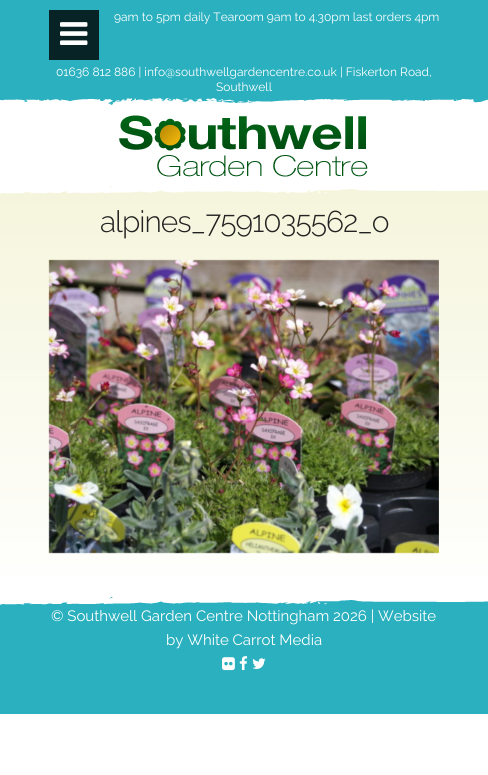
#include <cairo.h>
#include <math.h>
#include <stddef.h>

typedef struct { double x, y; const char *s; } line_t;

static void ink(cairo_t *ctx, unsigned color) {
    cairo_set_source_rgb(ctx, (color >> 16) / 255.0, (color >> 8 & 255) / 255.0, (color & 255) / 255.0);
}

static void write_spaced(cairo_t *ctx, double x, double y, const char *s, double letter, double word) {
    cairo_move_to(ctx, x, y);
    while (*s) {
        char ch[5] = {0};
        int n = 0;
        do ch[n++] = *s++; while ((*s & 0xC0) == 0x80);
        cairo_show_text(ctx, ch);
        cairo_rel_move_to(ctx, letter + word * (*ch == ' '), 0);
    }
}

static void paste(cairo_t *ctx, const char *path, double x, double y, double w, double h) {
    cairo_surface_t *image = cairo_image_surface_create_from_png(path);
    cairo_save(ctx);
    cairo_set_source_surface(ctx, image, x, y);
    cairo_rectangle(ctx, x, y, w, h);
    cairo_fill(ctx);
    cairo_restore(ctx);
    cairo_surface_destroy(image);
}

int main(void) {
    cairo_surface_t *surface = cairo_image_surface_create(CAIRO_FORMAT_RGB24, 488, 775);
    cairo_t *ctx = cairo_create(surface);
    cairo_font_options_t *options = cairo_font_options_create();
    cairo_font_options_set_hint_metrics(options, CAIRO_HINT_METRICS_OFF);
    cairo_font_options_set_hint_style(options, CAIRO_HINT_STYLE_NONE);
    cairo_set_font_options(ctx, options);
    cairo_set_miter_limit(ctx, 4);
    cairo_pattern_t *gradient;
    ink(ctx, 0xFFFFFF);
    cairo_paint(ctx);
    ink(ctx, 0x2AB0BF);
    cairo_rectangle(ctx, 0, 0, 488, 105);
    cairo_fill(ctx);
    paste(ctx, "media/1.png", 0, 98, 488, 8);
    ink(ctx, 0x082326);
    cairo_rectangle(ctx, 49, 10, 50, 50);
    cairo_fill(ctx);
    paste(ctx, "media/2.png", 60, 22, 28, 23);
    cairo_select_font_face(ctx, "Raleway", CAIRO_FONT_SLANT_NORMAL, CAIRO_FONT_WEIGHT_NORMAL);
    cairo_set_font_size(ctx, 12);
    ink(ctx, 0xFFFFFF);
    {
        static const line_t items[] = {
            {114, 21, "9am to 5pm daily Tearoom 9am to 4.30pm last orders 4pm"},
            {56, 76, "01636 812 886 | info@southwellgardencentre.co.uk | Fiskerton Road,"},
            {216, 91, "Southwell"},
        };
        for (size_t i = 0; i < sizeof items / sizeof *items; i++) {
            cairo_move_to(ctx, items[i].x, items[i].y);
            cairo_show_text(ctx, items[i].s);
        }
    }
    gradient = cairo_pattern_create_linear(244, 184, 244, 605);
    cairo_pattern_add_color_stop_rgba(gradient, 0, 0.961, 0.961, 0.863, 1);
    cairo_pattern_add_color_stop_rgba(gradient, 1, 1, 1, 1, 1);
    cairo_set_source(ctx, gradient);
    cairo_pattern_destroy(gradient);
    cairo_rectangle(ctx, 0, 186, 488, 389);
    cairo_fill(ctx);
    paste(ctx, "media/3.png", 0, 184, 488, 10);
    paste(ctx, "media/4.png", 119, 115, 249, 62);
    cairo_select_font_face(ctx, "Raleway Light", CAIRO_FONT_SLANT_NORMAL, CAIRO_FONT_WEIGHT_NORMAL);
    cairo_set_font_size(ctx, 30);
    ink(ctx, 0x222222);
    write_spaced(ctx, 100, 232, "alpines_7591035562_o", -1, 0);
    paste(ctx, "media/5.png", 48, 259, 391, 295);
    ink(ctx, 0x2AB0BF);
    cairo_rectangle(ctx, 0, 597, 488, 117);
    cairo_fill(ctx);
    paste(ctx, "media/6.png", 0, 595, 488, 10);
    cairo_select_font_face(ctx, "Raleway", CAIRO_FONT_SLANT_NORMAL, CAIRO_FONT_WEIGHT_NORMAL);
    cairo_set_font_size(ctx, 15);
    ink(ctx, 0xFFFFFF);
    cairo_move_to(ctx, 51, 621);
    cairo_show_text(ctx, "© Southwell Garden Centre Nottingham 2026 | Website");
    cairo_move_to(ctx, 166, 645);
    cairo_show_text(ctx, "by White Carrot Media");
    paste(ctx, "media/7.png", 222, 657, 13, 14);
    paste(ctx, "media/8.png", 239, 656, 9, 15);
    paste(ctx, "media/9.png", 252, 658, 14, 11);
    cairo_surface_write_to_png(surface, "image.png");
    cairo_font_options_destroy(options);
    cairo_destroy(ctx);
    cairo_surface_destroy(surface);
    return 0;
}
